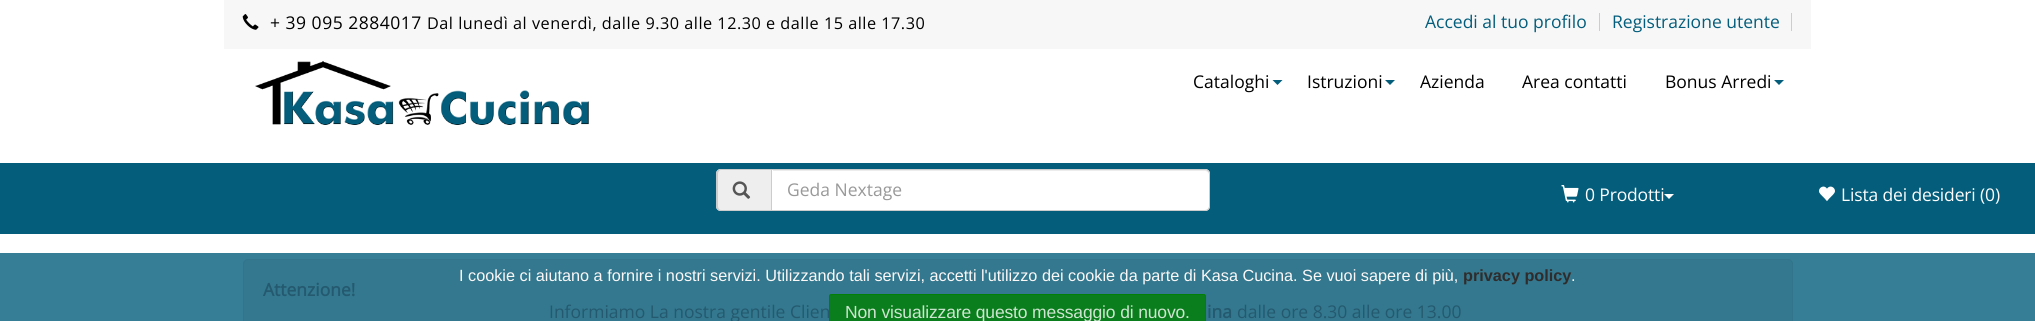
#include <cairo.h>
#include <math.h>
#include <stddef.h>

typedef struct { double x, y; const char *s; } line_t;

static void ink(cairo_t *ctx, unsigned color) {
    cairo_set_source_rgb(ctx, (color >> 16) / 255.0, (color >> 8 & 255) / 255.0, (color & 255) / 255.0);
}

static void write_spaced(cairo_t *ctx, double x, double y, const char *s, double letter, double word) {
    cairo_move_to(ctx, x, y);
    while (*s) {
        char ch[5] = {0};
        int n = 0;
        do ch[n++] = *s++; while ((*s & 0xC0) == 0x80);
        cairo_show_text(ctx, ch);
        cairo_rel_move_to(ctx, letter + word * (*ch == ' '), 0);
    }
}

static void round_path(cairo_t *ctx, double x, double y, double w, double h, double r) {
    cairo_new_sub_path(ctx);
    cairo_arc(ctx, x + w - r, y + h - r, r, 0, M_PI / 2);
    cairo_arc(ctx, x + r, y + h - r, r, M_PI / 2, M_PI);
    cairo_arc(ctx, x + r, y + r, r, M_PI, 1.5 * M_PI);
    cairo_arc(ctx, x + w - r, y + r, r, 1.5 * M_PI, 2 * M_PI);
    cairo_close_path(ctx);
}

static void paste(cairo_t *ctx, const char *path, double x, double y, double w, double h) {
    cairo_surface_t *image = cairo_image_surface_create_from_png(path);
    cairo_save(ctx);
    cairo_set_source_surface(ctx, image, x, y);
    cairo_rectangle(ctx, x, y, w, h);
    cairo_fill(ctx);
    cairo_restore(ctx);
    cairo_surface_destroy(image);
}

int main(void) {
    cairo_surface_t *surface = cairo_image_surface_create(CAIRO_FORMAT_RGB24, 2035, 321);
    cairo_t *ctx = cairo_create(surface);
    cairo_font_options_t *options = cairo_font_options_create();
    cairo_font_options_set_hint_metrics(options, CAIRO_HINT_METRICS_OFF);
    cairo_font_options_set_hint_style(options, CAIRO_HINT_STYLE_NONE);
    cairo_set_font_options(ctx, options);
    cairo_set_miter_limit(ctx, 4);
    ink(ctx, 0xFFFFFF);
    cairo_paint(ctx);
    ink(ctx, 0x357E95);
    cairo_rectangle(ctx, 0, 253, 2035, 68);
    cairo_fill(ctx);
    ink(ctx, 0xF7F7F7);
    cairo_rectangle(ctx, 224, 0, 1587, 49);
    cairo_fill(ctx);
    paste(ctx, "media/1.png", 242, 14, 17, 16);
    cairo_select_font_face(ctx, "Open Sans", CAIRO_FONT_SLANT_NORMAL, CAIRO_FONT_WEIGHT_NORMAL);
    cairo_set_font_size(ctx, 17.5);
    ink(ctx, 0x000000);
    write_spaced(ctx, 270, 29, "+ 39 095 2884017", 0.5, 0);
    cairo_set_font_size(ctx, 16.25);
    write_spaced(ctx, 427, 29, "Dal lunedì al venerdì, dalle 9.30 alle 12.30 e dalle 15 alle 17.30", 0.5, 0);
    cairo_set_font_size(ctx, 17.5);
    ink(ctx, 0x035D7B);
    cairo_move_to(ctx, 1425, 28);
    cairo_show_text(ctx, "Accedi al tuo profilo");
    ink(ctx, 0xCDCDCD);
    cairo_rectangle(ctx, 1599, 13, 1, 18);
    cairo_fill(ctx);
    ink(ctx, 0x035D7B);
    cairo_move_to(ctx, 1612, 28);
    cairo_show_text(ctx, "Registrazione utente");
    ink(ctx, 0xCDCDCD);
    cairo_rectangle(ctx, 1791, 13, 1, 18);
    cairo_fill(ctx);
    paste(ctx, "media/2.png", 255, 61, 334, 64);
    ink(ctx, 0x000000);
    cairo_move_to(ctx, 1193, 88);
    cairo_show_text(ctx, "Cataloghi");
    ink(ctx, 0x035D7B);
    cairo_new_path(ctx);
    cairo_move_to(ctx, 1272.5, 80);
    cairo_line_to(ctx, 1282.5, 80);
    cairo_line_to(ctx, 1277.5, 85);
    cairo_close_path(ctx);
    cairo_fill(ctx);
    ink(ctx, 0x000000);
    cairo_move_to(ctx, 1307, 88);
    cairo_show_text(ctx, "Istruzioni");
    ink(ctx, 0x035D7B);
    cairo_new_path(ctx);
    cairo_move_to(ctx, 1385, 80);
    cairo_line_to(ctx, 1395, 80);
    cairo_line_to(ctx, 1390, 85);
    cairo_close_path(ctx);
    cairo_fill(ctx);
    ink(ctx, 0x000000);
    {
        static const line_t items[] = {
            {1420, 88, "Azienda"},
            {1522, 88, "Area contatti"},
            {1665, 88, "Bonus Arredi"},
        };
        for (size_t i = 0; i < sizeof items / sizeof *items; i++) {
            cairo_move_to(ctx, items[i].x, items[i].y);
            cairo_show_text(ctx, items[i].s);
        }
    }
    ink(ctx, 0x035D7B);
    cairo_new_path(ctx);
    cairo_move_to(ctx, 1774, 80);
    cairo_line_to(ctx, 1784, 80);
    cairo_line_to(ctx, 1779, 85);
    cairo_close_path(ctx);
    cairo_fill(ctx);
    cairo_rectangle(ctx, 0, 163, 2035, 71);
    cairo_fill(ctx);
    ink(ctx, 0xEEEEEE);
    cairo_new_path(ctx);
    cairo_move_to(ctx, 721, 169);
    cairo_line_to(ctx, 771, 169);
    cairo_line_to(ctx, 771, 211);
    cairo_line_to(ctx, 721, 211);
    cairo_curve_to(ctx, 718, 211, 716, 209, 716, 206);
    cairo_line_to(ctx, 716, 174);
    cairo_curve_to(ctx, 716, 171, 718, 169, 721, 169);
    cairo_close_path(ctx);
    cairo_fill(ctx);
    ink(ctx, 0xCCCCCC);
    cairo_set_fill_rule(ctx, CAIRO_FILL_RULE_EVEN_ODD);
    cairo_new_path(ctx);
    cairo_move_to(ctx, 721, 169);
    cairo_line_to(ctx, 771, 169);
    cairo_line_to(ctx, 771, 211);
    cairo_line_to(ctx, 721, 211);
    cairo_curve_to(ctx, 718, 211, 716, 209, 716, 206);
    cairo_line_to(ctx, 716, 174);
    cairo_curve_to(ctx, 716, 171, 718, 169, 721, 169);
    cairo_close_path(ctx);
    cairo_move_to(ctx, 721, 170);
    cairo_line_to(ctx, 771, 170);
    cairo_line_to(ctx, 771, 210);
    cairo_line_to(ctx, 721, 210);
    cairo_curve_to(ctx, 719, 210, 718, 208, 718, 206);
    cairo_line_to(ctx, 718, 174);
    cairo_curve_to(ctx, 718, 172, 719, 170, 721, 170);
    cairo_close_path(ctx);
    cairo_fill(ctx);
    paste(ctx, "media/3.png", 732, 181, 19, 18);
    ink(ctx, 0xFFFFFF);
    cairo_new_path(ctx);
    cairo_move_to(ctx, 771, 169);
    cairo_line_to(ctx, 1205, 169);
    cairo_curve_to(ctx, 1208, 169, 1210, 171, 1210, 174);
    cairo_line_to(ctx, 1210, 206);
    cairo_curve_to(ctx, 1210, 209, 1208, 211, 1205, 211);
    cairo_line_to(ctx, 771, 211);
    cairo_close_path(ctx);
    cairo_fill(ctx);
    ink(ctx, 0xECECEC);
    cairo_set_fill_rule(ctx, CAIRO_FILL_RULE_WINDING);
    cairo_new_path(ctx);
    cairo_move_to(ctx, 773, 170);
    cairo_line_to(ctx, 773, 171);
    cairo_line_to(ctx, 1205, 171);
    cairo_curve_to(ctx, 1207, 171, 1209, 173, 1209, 175);
    cairo_curve_to(ctx, 1209, 172, 1208, 170, 1205, 170);
    cairo_close_path(ctx);
    cairo_fill(ctx);
    cairo_new_path(ctx);
    cairo_move_to(ctx, 771.5, 169.5);
    cairo_line_to(ctx, 1205, 169.5);
    cairo_curve_to(ctx, 1207.5, 169.5, 1209.5, 171.5, 1209.5, 174);
    cairo_line_to(ctx, 1209.5, 206);
    cairo_curve_to(ctx, 1209.5, 208.5, 1207.5, 210.5, 1205, 210.5);
    cairo_line_to(ctx, 771.5, 210.5);
    cairo_close_path(ctx);
    ink(ctx, 0xCCCCCC);
    cairo_set_line_width(ctx, 1);
    cairo_stroke(ctx);
    ink(ctx, 0x999999);
    cairo_move_to(ctx, 787, 196);
    cairo_show_text(ctx, "Geda Nextage");
    paste(ctx, "media/4.png", 1561, 185, 18, 18);
    ink(ctx, 0xFFFFFF);
    write_spaced(ctx, 1585, 201, "0 Prodotti", -0.15, 0);
    cairo_new_path(ctx);
    cairo_move_to(ctx, 1664, 194);
    cairo_line_to(ctx, 1674, 194);
    cairo_line_to(ctx, 1669, 199);
    cairo_close_path(ctx);
    cairo_fill(ctx);
    paste(ctx, "media/5.png", 1819, 186, 16, 16);
    write_spaced(ctx, 1841, 201, "Lista dei desideri (0)", -0.15, 0);
    ink(ctx, 0x33788E);
    round_path(ctx, 243.5, 259.5, 1549, 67, 4.5);
    cairo_fill_preserve(ctx);
    ink(ctx, 0x31748B);
    cairo_stroke(ctx);
    cairo_select_font_face(ctx, "Liberation Sans", CAIRO_FONT_SLANT_NORMAL, CAIRO_FONT_WEIGHT_NORMAL);
    cairo_set_font_size(ctx, 16.25);
    ink(ctx, 0xFCF8F8);
    cairo_move_to(ctx, 459, 281);
    cairo_show_text(ctx, "I cookie ci aiutano a fornire i nostri servizi. Utilizzando tali servizi, accetti l'utilizzo dei cookie da parte di Kasa Cucina. Se vuoi sapere di più,");
    cairo_select_font_face(ctx, "Liberation Sans", CAIRO_FONT_SLANT_NORMAL, CAIRO_FONT_WEIGHT_BOLD);
    ink(ctx, 0x302C2C);
    cairo_move_to(ctx, 1463, 281);
    cairo_show_text(ctx, "privacy policy");
    cairo_select_font_face(ctx, "Liberation Sans", CAIRO_FONT_SLANT_NORMAL, CAIRO_FONT_WEIGHT_NORMAL);
    ink(ctx, 0xFCF8F8);
    cairo_move_to(ctx, 1571, 281);
    cairo_show_text(ctx, ".");
    cairo_set_source_rgba(ctx, 0, 0.502, 0, 0.8);
    round_path(ctx, 829, 294, 377, 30, 2.5);
    cairo_fill(ctx);
    round_path(ctx, 829.5, 294.5, 376, 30, 2);
    cairo_stroke(ctx);
    cairo_set_font_size(ctx, 17.5);
    ink(ctx, 0xCEE5D1);
    write_spaced(ctx, 845, 318, "Non visualizzare questo messaggio di nuovo.", -0.15, 0);
    cairo_select_font_face(ctx, "Open Sans", CAIRO_FONT_SLANT_NORMAL, CAIRO_FONT_WEIGHT_BOLD);
    ink(ctx, 0x24596F);
    cairo_move_to(ctx, 263, 296);
    cairo_show_text(ctx, "Attenzione!");
    cairo_select_font_face(ctx, "Open Sans", CAIRO_FONT_SLANT_NORMAL, CAIRO_FONT_WEIGHT_NORMAL);
    cairo_move_to(ctx, 549, 318);
    cairo_show_text(ctx, "Informiamo La nostra gentile Clien");
    cairo_select_font_face(ctx, "Open Sans", CAIRO_FONT_SLANT_NORMAL, CAIRO_FONT_WEIGHT_BOLD);
    cairo_move_to(ctx, 1207, 318);
    cairo_show_text(ctx, "ina");
    cairo_select_font_face(ctx, "Open Sans", CAIRO_FONT_SLANT_NORMAL, CAIRO_FONT_WEIGHT_NORMAL);
    cairo_move_to(ctx, 1237, 318);
    cairo_show_text(ctx, "dalle ore 8.30 alle ore 13.00");
    cairo_surface_write_to_png(surface, "image.png");
    cairo_font_options_destroy(options);
    cairo_destroy(ctx);
    cairo_surface_destroy(surface);
    return 0;
}
